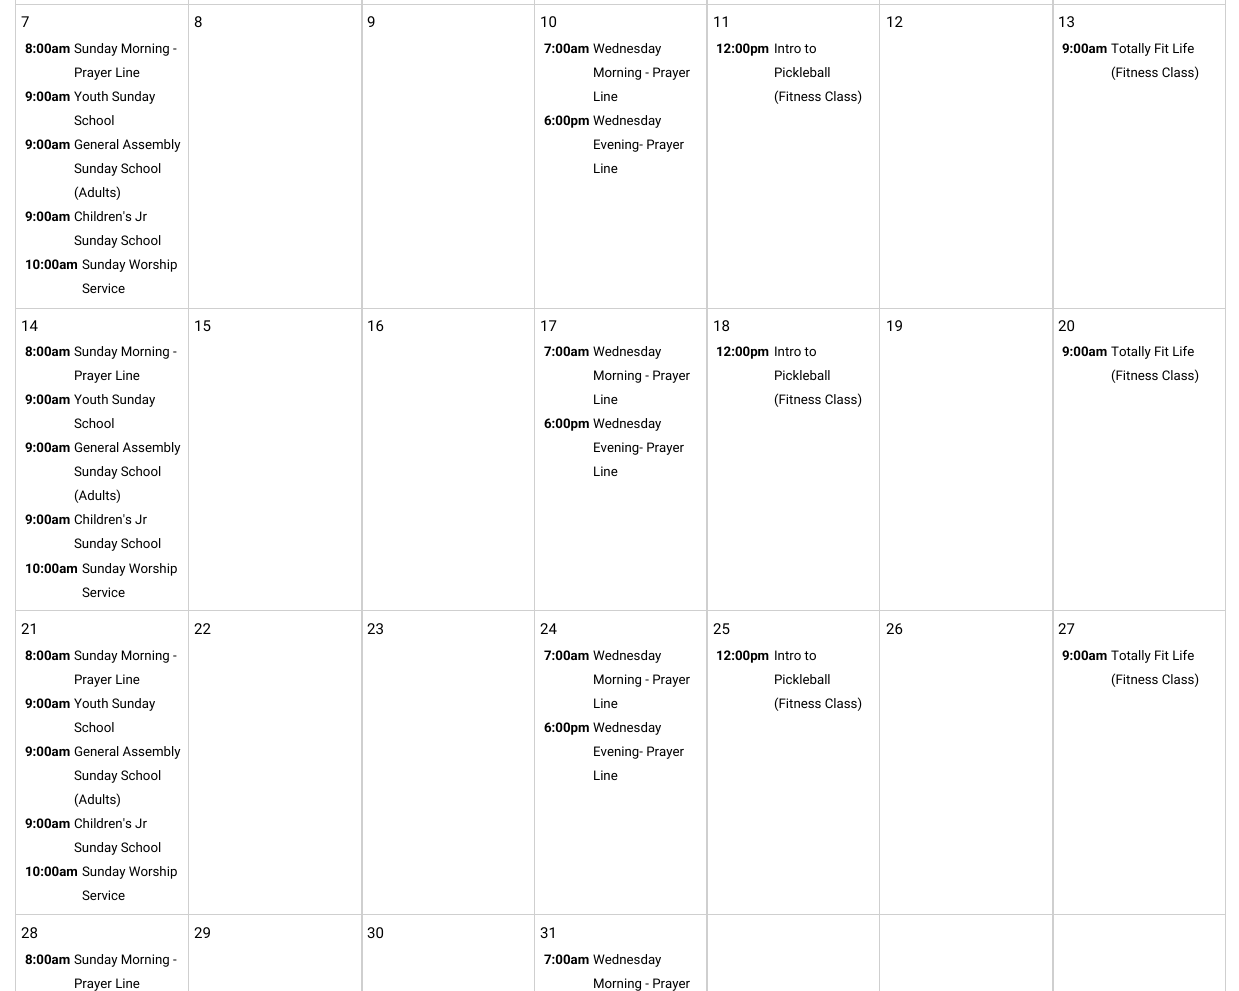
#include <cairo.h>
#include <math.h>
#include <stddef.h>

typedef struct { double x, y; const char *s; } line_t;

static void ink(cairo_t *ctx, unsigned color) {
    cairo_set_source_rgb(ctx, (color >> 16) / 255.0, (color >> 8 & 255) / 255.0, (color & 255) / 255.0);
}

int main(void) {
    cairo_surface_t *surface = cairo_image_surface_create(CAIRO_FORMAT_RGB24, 1239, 991);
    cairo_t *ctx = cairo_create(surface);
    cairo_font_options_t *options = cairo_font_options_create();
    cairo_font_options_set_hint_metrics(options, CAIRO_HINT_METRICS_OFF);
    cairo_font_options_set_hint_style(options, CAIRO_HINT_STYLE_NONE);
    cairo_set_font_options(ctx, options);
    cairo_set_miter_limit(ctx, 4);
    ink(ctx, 0xFFFFFF);
    cairo_paint(ctx);
    ink(ctx, 0xCFCFCF);
    cairo_new_path(ctx);
    cairo_move_to(ctx, 16, 4);
    cairo_line_to(ctx, 16, 5);
    cairo_line_to(ctx, 189, 5);
    cairo_line_to(ctx, 189, -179);
    cairo_line_to(ctx, 188, -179);
    cairo_line_to(ctx, 188, 4);
    cairo_close_path(ctx);
    cairo_fill(ctx);
    cairo_new_path(ctx);
    cairo_move_to(ctx, 15, 4);
    cairo_line_to(ctx, 15, 5);
    cairo_line_to(ctx, 188, 5);
    cairo_line_to(ctx, 188, -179);
    cairo_line_to(ctx, 188, 4);
    cairo_close_path(ctx);
    cairo_fill(ctx);
    cairo_rectangle(ctx, 15, 0, 1, 308);
    cairo_fill(ctx);
    cairo_new_path(ctx);
    cairo_move_to(ctx, 189, 4);
    cairo_line_to(ctx, 189, 5);
    cairo_line_to(ctx, 363, 5);
    cairo_line_to(ctx, 363, -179);
    cairo_line_to(ctx, 361, -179);
    cairo_line_to(ctx, 361, 4);
    cairo_close_path(ctx);
    cairo_fill(ctx);
    cairo_new_path(ctx);
    cairo_move_to(ctx, 363, 4);
    cairo_line_to(ctx, 363, 5);
    cairo_line_to(ctx, 535, 5);
    cairo_line_to(ctx, 535, -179);
    cairo_line_to(ctx, 534, -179);
    cairo_line_to(ctx, 534, 4);
    cairo_close_path(ctx);
    cairo_fill(ctx);
    cairo_new_path(ctx);
    cairo_move_to(ctx, 535, 4);
    cairo_line_to(ctx, 535, 5);
    cairo_line_to(ctx, 708, 5);
    cairo_line_to(ctx, 708, -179);
    cairo_line_to(ctx, 706, -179);
    cairo_line_to(ctx, 706, 4);
    cairo_close_path(ctx);
    cairo_fill(ctx);
    cairo_new_path(ctx);
    cairo_move_to(ctx, 708, 4);
    cairo_line_to(ctx, 708, 5);
    cairo_line_to(ctx, 880, 5);
    cairo_line_to(ctx, 880, -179);
    cairo_line_to(ctx, 879, -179);
    cairo_line_to(ctx, 879, 4);
    cairo_close_path(ctx);
    cairo_fill(ctx);
    cairo_new_path(ctx);
    cairo_move_to(ctx, 880, 4);
    cairo_line_to(ctx, 880, 5);
    cairo_line_to(ctx, 1054, 5);
    cairo_line_to(ctx, 1054, -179);
    cairo_line_to(ctx, 1052, -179);
    cairo_line_to(ctx, 1052, 4);
    cairo_close_path(ctx);
    cairo_fill(ctx);
    cairo_new_path(ctx);
    cairo_move_to(ctx, 1054, 4);
    cairo_line_to(ctx, 1054, 5);
    cairo_line_to(ctx, 1226, 5);
    cairo_line_to(ctx, 1226, -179);
    cairo_line_to(ctx, 1225, -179);
    cairo_line_to(ctx, 1225, 4);
    cairo_close_path(ctx);
    cairo_fill(ctx);
    cairo_new_path(ctx);
    cairo_move_to(ctx, 16, 308);
    cairo_line_to(ctx, 16, 309);
    cairo_line_to(ctx, 189, 309);
    cairo_line_to(ctx, 189, 5);
    cairo_line_to(ctx, 188, 5);
    cairo_line_to(ctx, 188, 308);
    cairo_close_path(ctx);
    cairo_fill(ctx);
    cairo_new_path(ctx);
    cairo_move_to(ctx, 15, 308);
    cairo_line_to(ctx, 15, 309);
    cairo_line_to(ctx, 188, 309);
    cairo_line_to(ctx, 188, 5);
    cairo_line_to(ctx, 188, 308);
    cairo_close_path(ctx);
    cairo_fill(ctx);
    cairo_select_font_face(ctx, "Roboto", CAIRO_FONT_SLANT_NORMAL, CAIRO_FONT_WEIGHT_NORMAL);
    cairo_set_font_size(ctx, 15);
    ink(ctx, 0x000000);
    cairo_move_to(ctx, 21, 27);
    cairo_show_text(ctx, "7");
    cairo_select_font_face(ctx, "Roboto", CAIRO_FONT_SLANT_NORMAL, CAIRO_FONT_WEIGHT_BOLD);
    cairo_set_font_size(ctx, 13.25);
    cairo_move_to(ctx, 25, 53);
    cairo_show_text(ctx, "8:00am");
    cairo_select_font_face(ctx, "Roboto", CAIRO_FONT_SLANT_NORMAL, CAIRO_FONT_WEIGHT_NORMAL);
    cairo_move_to(ctx, 74, 53);
    cairo_show_text(ctx, "Sunday Morning -");
    cairo_move_to(ctx, 74, 77);
    cairo_show_text(ctx, "Prayer Line");
    cairo_select_font_face(ctx, "Roboto", CAIRO_FONT_SLANT_NORMAL, CAIRO_FONT_WEIGHT_BOLD);
    cairo_move_to(ctx, 25, 101);
    cairo_show_text(ctx, "9:00am");
    cairo_select_font_face(ctx, "Roboto", CAIRO_FONT_SLANT_NORMAL, CAIRO_FONT_WEIGHT_NORMAL);
    cairo_move_to(ctx, 74, 101);
    cairo_show_text(ctx, "Youth Sunday");
    cairo_move_to(ctx, 74, 125);
    cairo_show_text(ctx, "School");
    cairo_select_font_face(ctx, "Roboto", CAIRO_FONT_SLANT_NORMAL, CAIRO_FONT_WEIGHT_BOLD);
    cairo_move_to(ctx, 25, 149);
    cairo_show_text(ctx, "9:00am");
    cairo_select_font_face(ctx, "Roboto", CAIRO_FONT_SLANT_NORMAL, CAIRO_FONT_WEIGHT_NORMAL);
    {
        static const line_t items[] = {
            {74, 149, "General Assembly"},
            {74, 173, "Sunday School"},
            {74, 197, "(Adults)"},
        };
        for (size_t i = 0; i < sizeof items / sizeof *items; i++) {
            cairo_move_to(ctx, items[i].x, items[i].y);
            cairo_show_text(ctx, items[i].s);
        }
    }
    cairo_select_font_face(ctx, "Roboto", CAIRO_FONT_SLANT_NORMAL, CAIRO_FONT_WEIGHT_BOLD);
    cairo_move_to(ctx, 25, 221);
    cairo_show_text(ctx, "9:00am");
    cairo_select_font_face(ctx, "Roboto", CAIRO_FONT_SLANT_NORMAL, CAIRO_FONT_WEIGHT_NORMAL);
    cairo_move_to(ctx, 74, 221);
    cairo_show_text(ctx, "Children's Jr");
    cairo_move_to(ctx, 74, 245);
    cairo_show_text(ctx, "Sunday School");
    cairo_select_font_face(ctx, "Roboto", CAIRO_FONT_SLANT_NORMAL, CAIRO_FONT_WEIGHT_BOLD);
    cairo_move_to(ctx, 25, 269);
    cairo_show_text(ctx, "10:00am");
    cairo_select_font_face(ctx, "Roboto", CAIRO_FONT_SLANT_NORMAL, CAIRO_FONT_WEIGHT_NORMAL);
    cairo_move_to(ctx, 82, 269);
    cairo_show_text(ctx, "Sunday Worship");
    cairo_move_to(ctx, 82, 293);
    cairo_show_text(ctx, "Service");
    ink(ctx, 0xCFCFCF);
    cairo_new_path(ctx);
    cairo_move_to(ctx, 189, 308);
    cairo_line_to(ctx, 189, 309);
    cairo_line_to(ctx, 363, 309);
    cairo_line_to(ctx, 363, 5);
    cairo_line_to(ctx, 361, 5);
    cairo_line_to(ctx, 361, 308);
    cairo_close_path(ctx);
    cairo_fill(ctx);
    cairo_set_font_size(ctx, 15);
    ink(ctx, 0x000000);
    cairo_move_to(ctx, 194, 27);
    cairo_show_text(ctx, "8");
    ink(ctx, 0xCFCFCF);
    cairo_new_path(ctx);
    cairo_move_to(ctx, 363, 308);
    cairo_line_to(ctx, 363, 309);
    cairo_line_to(ctx, 535, 309);
    cairo_line_to(ctx, 535, 5);
    cairo_line_to(ctx, 534, 5);
    cairo_line_to(ctx, 534, 308);
    cairo_close_path(ctx);
    cairo_fill(ctx);
    ink(ctx, 0x000000);
    cairo_move_to(ctx, 367, 27);
    cairo_show_text(ctx, "9");
    ink(ctx, 0xCFCFCF);
    cairo_new_path(ctx);
    cairo_move_to(ctx, 535, 308);
    cairo_line_to(ctx, 535, 309);
    cairo_line_to(ctx, 708, 309);
    cairo_line_to(ctx, 708, 5);
    cairo_line_to(ctx, 706, 5);
    cairo_line_to(ctx, 706, 308);
    cairo_close_path(ctx);
    cairo_fill(ctx);
    ink(ctx, 0x000000);
    cairo_move_to(ctx, 540, 27);
    cairo_show_text(ctx, "10");
    cairo_select_font_face(ctx, "Roboto", CAIRO_FONT_SLANT_NORMAL, CAIRO_FONT_WEIGHT_BOLD);
    cairo_set_font_size(ctx, 13.25);
    cairo_move_to(ctx, 544, 53);
    cairo_show_text(ctx, "7:00am");
    cairo_select_font_face(ctx, "Roboto", CAIRO_FONT_SLANT_NORMAL, CAIRO_FONT_WEIGHT_NORMAL);
    {
        static const line_t items[] = {
            {593, 53, "Wednesday"},
            {593, 77, "Morning - Prayer"},
            {593, 101, "Line"},
        };
        for (size_t i = 0; i < sizeof items / sizeof *items; i++) {
            cairo_move_to(ctx, items[i].x, items[i].y);
            cairo_show_text(ctx, items[i].s);
        }
    }
    cairo_select_font_face(ctx, "Roboto", CAIRO_FONT_SLANT_NORMAL, CAIRO_FONT_WEIGHT_BOLD);
    cairo_move_to(ctx, 544, 125);
    cairo_show_text(ctx, "6:00pm");
    cairo_select_font_face(ctx, "Roboto", CAIRO_FONT_SLANT_NORMAL, CAIRO_FONT_WEIGHT_NORMAL);
    {
        static const line_t items[] = {
            {593, 125, "Wednesday"},
            {593, 149, "Evening- Prayer"},
            {593, 173, "Line"},
        };
        for (size_t i = 0; i < sizeof items / sizeof *items; i++) {
            cairo_move_to(ctx, items[i].x, items[i].y);
            cairo_show_text(ctx, items[i].s);
        }
    }
    ink(ctx, 0xCFCFCF);
    cairo_new_path(ctx);
    cairo_move_to(ctx, 708, 308);
    cairo_line_to(ctx, 708, 309);
    cairo_line_to(ctx, 880, 309);
    cairo_line_to(ctx, 880, 5);
    cairo_line_to(ctx, 879, 5);
    cairo_line_to(ctx, 879, 308);
    cairo_close_path(ctx);
    cairo_fill(ctx);
    cairo_set_font_size(ctx, 15);
    ink(ctx, 0x000000);
    cairo_move_to(ctx, 713, 27);
    cairo_show_text(ctx, "11");
    cairo_select_font_face(ctx, "Roboto", CAIRO_FONT_SLANT_NORMAL, CAIRO_FONT_WEIGHT_BOLD);
    cairo_set_font_size(ctx, 13.25);
    cairo_move_to(ctx, 716, 53);
    cairo_show_text(ctx, "12:00pm");
    cairo_select_font_face(ctx, "Roboto", CAIRO_FONT_SLANT_NORMAL, CAIRO_FONT_WEIGHT_NORMAL);
    {
        static const line_t items[] = {
            {774, 53, "Intro to"},
            {774, 77, "Pickleball"},
            {774, 101, "(Fitness Class)"},
        };
        for (size_t i = 0; i < sizeof items / sizeof *items; i++) {
            cairo_move_to(ctx, items[i].x, items[i].y);
            cairo_show_text(ctx, items[i].s);
        }
    }
    ink(ctx, 0xCFCFCF);
    cairo_new_path(ctx);
    cairo_move_to(ctx, 880, 308);
    cairo_line_to(ctx, 880, 309);
    cairo_line_to(ctx, 1054, 309);
    cairo_line_to(ctx, 1054, 5);
    cairo_line_to(ctx, 1052, 5);
    cairo_line_to(ctx, 1052, 308);
    cairo_close_path(ctx);
    cairo_fill(ctx);
    cairo_set_font_size(ctx, 15);
    ink(ctx, 0x000000);
    cairo_move_to(ctx, 886, 27);
    cairo_show_text(ctx, "12");
    ink(ctx, 0xCFCFCF);
    cairo_new_path(ctx);
    cairo_move_to(ctx, 1054, 308);
    cairo_line_to(ctx, 1054, 309);
    cairo_line_to(ctx, 1226, 309);
    cairo_line_to(ctx, 1226, 5);
    cairo_line_to(ctx, 1225, 5);
    cairo_line_to(ctx, 1225, 308);
    cairo_close_path(ctx);
    cairo_fill(ctx);
    ink(ctx, 0x000000);
    cairo_move_to(ctx, 1058, 27);
    cairo_show_text(ctx, "13");
    cairo_select_font_face(ctx, "Roboto", CAIRO_FONT_SLANT_NORMAL, CAIRO_FONT_WEIGHT_BOLD);
    cairo_set_font_size(ctx, 13.25);
    cairo_move_to(ctx, 1062, 53);
    cairo_show_text(ctx, "9:00am");
    cairo_select_font_face(ctx, "Roboto", CAIRO_FONT_SLANT_NORMAL, CAIRO_FONT_WEIGHT_NORMAL);
    cairo_move_to(ctx, 1111, 53);
    cairo_show_text(ctx, "Totally Fit Life");
    cairo_move_to(ctx, 1111, 77);
    cairo_show_text(ctx, "(Fitness Class)");
    ink(ctx, 0xCFCFCF);
    cairo_new_path(ctx);
    cairo_move_to(ctx, 16, 610);
    cairo_line_to(ctx, 16, 611);
    cairo_line_to(ctx, 189, 611);
    cairo_line_to(ctx, 189, 309);
    cairo_line_to(ctx, 188, 309);
    cairo_line_to(ctx, 188, 610);
    cairo_close_path(ctx);
    cairo_fill(ctx);
    cairo_new_path(ctx);
    cairo_move_to(ctx, 15, 610);
    cairo_line_to(ctx, 15, 611);
    cairo_line_to(ctx, 188, 611);
    cairo_line_to(ctx, 188, 309);
    cairo_line_to(ctx, 188, 610);
    cairo_close_path(ctx);
    cairo_fill(ctx);
    cairo_rectangle(ctx, 15, 308, 1, 606);
    cairo_fill(ctx);
    cairo_set_font_size(ctx, 15);
    ink(ctx, 0x000000);
    cairo_move_to(ctx, 21, 331);
    cairo_show_text(ctx, "14");
    cairo_select_font_face(ctx, "Roboto", CAIRO_FONT_SLANT_NORMAL, CAIRO_FONT_WEIGHT_BOLD);
    cairo_set_font_size(ctx, 13.25);
    cairo_move_to(ctx, 25, 356);
    cairo_show_text(ctx, "8:00am");
    cairo_select_font_face(ctx, "Roboto", CAIRO_FONT_SLANT_NORMAL, CAIRO_FONT_WEIGHT_NORMAL);
    cairo_move_to(ctx, 74, 356);
    cairo_show_text(ctx, "Sunday Morning -");
    cairo_move_to(ctx, 74, 380);
    cairo_show_text(ctx, "Prayer Line");
    cairo_select_font_face(ctx, "Roboto", CAIRO_FONT_SLANT_NORMAL, CAIRO_FONT_WEIGHT_BOLD);
    cairo_move_to(ctx, 25, 404);
    cairo_show_text(ctx, "9:00am");
    cairo_select_font_face(ctx, "Roboto", CAIRO_FONT_SLANT_NORMAL, CAIRO_FONT_WEIGHT_NORMAL);
    cairo_move_to(ctx, 74, 404);
    cairo_show_text(ctx, "Youth Sunday");
    cairo_move_to(ctx, 74, 428);
    cairo_show_text(ctx, "School");
    cairo_select_font_face(ctx, "Roboto", CAIRO_FONT_SLANT_NORMAL, CAIRO_FONT_WEIGHT_BOLD);
    cairo_move_to(ctx, 25, 452);
    cairo_show_text(ctx, "9:00am");
    cairo_select_font_face(ctx, "Roboto", CAIRO_FONT_SLANT_NORMAL, CAIRO_FONT_WEIGHT_NORMAL);
    {
        static const line_t items[] = {
            {74, 452, "General Assembly"},
            {74, 476, "Sunday School"},
            {74, 500, "(Adults)"},
        };
        for (size_t i = 0; i < sizeof items / sizeof *items; i++) {
            cairo_move_to(ctx, items[i].x, items[i].y);
            cairo_show_text(ctx, items[i].s);
        }
    }
    cairo_select_font_face(ctx, "Roboto", CAIRO_FONT_SLANT_NORMAL, CAIRO_FONT_WEIGHT_BOLD);
    cairo_move_to(ctx, 25, 524);
    cairo_show_text(ctx, "9:00am");
    cairo_select_font_face(ctx, "Roboto", CAIRO_FONT_SLANT_NORMAL, CAIRO_FONT_WEIGHT_NORMAL);
    cairo_move_to(ctx, 74, 524);
    cairo_show_text(ctx, "Children's Jr");
    cairo_move_to(ctx, 74, 548);
    cairo_show_text(ctx, "Sunday School");
    cairo_select_font_face(ctx, "Roboto", CAIRO_FONT_SLANT_NORMAL, CAIRO_FONT_WEIGHT_BOLD);
    cairo_move_to(ctx, 25, 573);
    cairo_show_text(ctx, "10:00am");
    cairo_select_font_face(ctx, "Roboto", CAIRO_FONT_SLANT_NORMAL, CAIRO_FONT_WEIGHT_NORMAL);
    cairo_move_to(ctx, 82, 573);
    cairo_show_text(ctx, "Sunday Worship");
    cairo_move_to(ctx, 82, 597);
    cairo_show_text(ctx, "Service");
    ink(ctx, 0xCFCFCF);
    cairo_new_path(ctx);
    cairo_move_to(ctx, 189, 610);
    cairo_line_to(ctx, 189, 611);
    cairo_line_to(ctx, 363, 611);
    cairo_line_to(ctx, 363, 309);
    cairo_line_to(ctx, 361, 309);
    cairo_line_to(ctx, 361, 610);
    cairo_close_path(ctx);
    cairo_fill(ctx);
    cairo_set_font_size(ctx, 15);
    ink(ctx, 0x000000);
    cairo_move_to(ctx, 194, 331);
    cairo_show_text(ctx, "15");
    ink(ctx, 0xCFCFCF);
    cairo_new_path(ctx);
    cairo_move_to(ctx, 363, 610);
    cairo_line_to(ctx, 363, 611);
    cairo_line_to(ctx, 535, 611);
    cairo_line_to(ctx, 535, 309);
    cairo_line_to(ctx, 534, 309);
    cairo_line_to(ctx, 534, 610);
    cairo_close_path(ctx);
    cairo_fill(ctx);
    ink(ctx, 0x000000);
    cairo_move_to(ctx, 367, 331);
    cairo_show_text(ctx, "16");
    ink(ctx, 0xCFCFCF);
    cairo_new_path(ctx);
    cairo_move_to(ctx, 535, 610);
    cairo_line_to(ctx, 535, 611);
    cairo_line_to(ctx, 708, 611);
    cairo_line_to(ctx, 708, 309);
    cairo_line_to(ctx, 706, 309);
    cairo_line_to(ctx, 706, 610);
    cairo_close_path(ctx);
    cairo_fill(ctx);
    ink(ctx, 0x000000);
    cairo_move_to(ctx, 540, 331);
    cairo_show_text(ctx, "17");
    cairo_select_font_face(ctx, "Roboto", CAIRO_FONT_SLANT_NORMAL, CAIRO_FONT_WEIGHT_BOLD);
    cairo_set_font_size(ctx, 13.25);
    cairo_move_to(ctx, 544, 356);
    cairo_show_text(ctx, "7:00am");
    cairo_select_font_face(ctx, "Roboto", CAIRO_FONT_SLANT_NORMAL, CAIRO_FONT_WEIGHT_NORMAL);
    {
        static const line_t items[] = {
            {593, 356, "Wednesday"},
            {593, 380, "Morning - Prayer"},
            {593, 404, "Line"},
        };
        for (size_t i = 0; i < sizeof items / sizeof *items; i++) {
            cairo_move_to(ctx, items[i].x, items[i].y);
            cairo_show_text(ctx, items[i].s);
        }
    }
    cairo_select_font_face(ctx, "Roboto", CAIRO_FONT_SLANT_NORMAL, CAIRO_FONT_WEIGHT_BOLD);
    cairo_move_to(ctx, 544, 428);
    cairo_show_text(ctx, "6:00pm");
    cairo_select_font_face(ctx, "Roboto", CAIRO_FONT_SLANT_NORMAL, CAIRO_FONT_WEIGHT_NORMAL);
    {
        static const line_t items[] = {
            {593, 428, "Wednesday"},
            {593, 452, "Evening- Prayer"},
            {593, 476, "Line"},
        };
        for (size_t i = 0; i < sizeof items / sizeof *items; i++) {
            cairo_move_to(ctx, items[i].x, items[i].y);
            cairo_show_text(ctx, items[i].s);
        }
    }
    ink(ctx, 0xCFCFCF);
    cairo_new_path(ctx);
    cairo_move_to(ctx, 708, 610);
    cairo_line_to(ctx, 708, 611);
    cairo_line_to(ctx, 880, 611);
    cairo_line_to(ctx, 880, 309);
    cairo_line_to(ctx, 879, 309);
    cairo_line_to(ctx, 879, 610);
    cairo_close_path(ctx);
    cairo_fill(ctx);
    cairo_set_font_size(ctx, 15);
    ink(ctx, 0x000000);
    cairo_move_to(ctx, 713, 331);
    cairo_show_text(ctx, "18");
    cairo_select_font_face(ctx, "Roboto", CAIRO_FONT_SLANT_NORMAL, CAIRO_FONT_WEIGHT_BOLD);
    cairo_set_font_size(ctx, 13.25);
    cairo_move_to(ctx, 716, 356);
    cairo_show_text(ctx, "12:00pm");
    cairo_select_font_face(ctx, "Roboto", CAIRO_FONT_SLANT_NORMAL, CAIRO_FONT_WEIGHT_NORMAL);
    {
        static const line_t items[] = {
            {774, 356, "Intro to"},
            {774, 380, "Pickleball"},
            {774, 404, "(Fitness Class)"},
        };
        for (size_t i = 0; i < sizeof items / sizeof *items; i++) {
            cairo_move_to(ctx, items[i].x, items[i].y);
            cairo_show_text(ctx, items[i].s);
        }
    }
    ink(ctx, 0xCFCFCF);
    cairo_new_path(ctx);
    cairo_move_to(ctx, 880, 610);
    cairo_line_to(ctx, 880, 611);
    cairo_line_to(ctx, 1054, 611);
    cairo_line_to(ctx, 1054, 309);
    cairo_line_to(ctx, 1052, 309);
    cairo_line_to(ctx, 1052, 610);
    cairo_close_path(ctx);
    cairo_fill(ctx);
    cairo_set_font_size(ctx, 15);
    ink(ctx, 0x000000);
    cairo_move_to(ctx, 886, 331);
    cairo_show_text(ctx, "19");
    ink(ctx, 0xCFCFCF);
    cairo_new_path(ctx);
    cairo_move_to(ctx, 1054, 610);
    cairo_line_to(ctx, 1054, 611);
    cairo_line_to(ctx, 1226, 611);
    cairo_line_to(ctx, 1226, 309);
    cairo_line_to(ctx, 1225, 309);
    cairo_line_to(ctx, 1225, 610);
    cairo_close_path(ctx);
    cairo_fill(ctx);
    ink(ctx, 0x000000);
    cairo_move_to(ctx, 1058, 331);
    cairo_show_text(ctx, "20");
    cairo_select_font_face(ctx, "Roboto", CAIRO_FONT_SLANT_NORMAL, CAIRO_FONT_WEIGHT_BOLD);
    cairo_set_font_size(ctx, 13.25);
    cairo_move_to(ctx, 1062, 356);
    cairo_show_text(ctx, "9:00am");
    cairo_select_font_face(ctx, "Roboto", CAIRO_FONT_SLANT_NORMAL, CAIRO_FONT_WEIGHT_NORMAL);
    cairo_move_to(ctx, 1111, 356);
    cairo_show_text(ctx, "Totally Fit Life");
    cairo_move_to(ctx, 1111, 380);
    cairo_show_text(ctx, "(Fitness Class)");
    ink(ctx, 0xCFCFCF);
    cairo_new_path(ctx);
    cairo_move_to(ctx, 16, 914);
    cairo_line_to(ctx, 16, 915);
    cairo_line_to(ctx, 189, 915);
    cairo_line_to(ctx, 189, 611);
    cairo_line_to(ctx, 188, 611);
    cairo_line_to(ctx, 188, 914);
    cairo_close_path(ctx);
    cairo_fill(ctx);
    cairo_new_path(ctx);
    cairo_move_to(ctx, 15, 914);
    cairo_line_to(ctx, 15, 915);
    cairo_line_to(ctx, 188, 915);
    cairo_line_to(ctx, 188, 611);
    cairo_line_to(ctx, 188, 914);
    cairo_close_path(ctx);
    cairo_fill(ctx);
    cairo_set_font_size(ctx, 15);
    ink(ctx, 0x000000);
    cairo_move_to(ctx, 21, 634);
    cairo_show_text(ctx, "21");
    cairo_select_font_face(ctx, "Roboto", CAIRO_FONT_SLANT_NORMAL, CAIRO_FONT_WEIGHT_BOLD);
    cairo_set_font_size(ctx, 13.25);
    cairo_move_to(ctx, 25, 660);
    cairo_show_text(ctx, "8:00am");
    cairo_select_font_face(ctx, "Roboto", CAIRO_FONT_SLANT_NORMAL, CAIRO_FONT_WEIGHT_NORMAL);
    cairo_move_to(ctx, 74, 660);
    cairo_show_text(ctx, "Sunday Morning -");
    cairo_move_to(ctx, 74, 684);
    cairo_show_text(ctx, "Prayer Line");
    cairo_select_font_face(ctx, "Roboto", CAIRO_FONT_SLANT_NORMAL, CAIRO_FONT_WEIGHT_BOLD);
    cairo_move_to(ctx, 25, 708);
    cairo_show_text(ctx, "9:00am");
    cairo_select_font_face(ctx, "Roboto", CAIRO_FONT_SLANT_NORMAL, CAIRO_FONT_WEIGHT_NORMAL);
    cairo_move_to(ctx, 74, 708);
    cairo_show_text(ctx, "Youth Sunday");
    cairo_move_to(ctx, 74, 732);
    cairo_show_text(ctx, "School");
    cairo_select_font_face(ctx, "Roboto", CAIRO_FONT_SLANT_NORMAL, CAIRO_FONT_WEIGHT_BOLD);
    cairo_move_to(ctx, 25, 756);
    cairo_show_text(ctx, "9:00am");
    cairo_select_font_face(ctx, "Roboto", CAIRO_FONT_SLANT_NORMAL, CAIRO_FONT_WEIGHT_NORMAL);
    {
        static const line_t items[] = {
            {74, 756, "General Assembly"},
            {74, 780, "Sunday School"},
            {74, 804, "(Adults)"},
        };
        for (size_t i = 0; i < sizeof items / sizeof *items; i++) {
            cairo_move_to(ctx, items[i].x, items[i].y);
            cairo_show_text(ctx, items[i].s);
        }
    }
    cairo_select_font_face(ctx, "Roboto", CAIRO_FONT_SLANT_NORMAL, CAIRO_FONT_WEIGHT_BOLD);
    cairo_move_to(ctx, 25, 828);
    cairo_show_text(ctx, "9:00am");
    cairo_select_font_face(ctx, "Roboto", CAIRO_FONT_SLANT_NORMAL, CAIRO_FONT_WEIGHT_NORMAL);
    cairo_move_to(ctx, 74, 828);
    cairo_show_text(ctx, "Children's Jr");
    cairo_move_to(ctx, 74, 852);
    cairo_show_text(ctx, "Sunday School");
    cairo_select_font_face(ctx, "Roboto", CAIRO_FONT_SLANT_NORMAL, CAIRO_FONT_WEIGHT_BOLD);
    cairo_move_to(ctx, 25, 876);
    cairo_show_text(ctx, "10:00am");
    cairo_select_font_face(ctx, "Roboto", CAIRO_FONT_SLANT_NORMAL, CAIRO_FONT_WEIGHT_NORMAL);
    cairo_move_to(ctx, 82, 876);
    cairo_show_text(ctx, "Sunday Worship");
    cairo_move_to(ctx, 82, 900);
    cairo_show_text(ctx, "Service");
    ink(ctx, 0xCFCFCF);
    cairo_new_path(ctx);
    cairo_move_to(ctx, 189, 914);
    cairo_line_to(ctx, 189, 915);
    cairo_line_to(ctx, 363, 915);
    cairo_line_to(ctx, 363, 611);
    cairo_line_to(ctx, 361, 611);
    cairo_line_to(ctx, 361, 914);
    cairo_close_path(ctx);
    cairo_fill(ctx);
    cairo_set_font_size(ctx, 15);
    ink(ctx, 0x000000);
    cairo_move_to(ctx, 194, 634);
    cairo_show_text(ctx, "22");
    ink(ctx, 0xCFCFCF);
    cairo_new_path(ctx);
    cairo_move_to(ctx, 363, 914);
    cairo_line_to(ctx, 363, 915);
    cairo_line_to(ctx, 535, 915);
    cairo_line_to(ctx, 535, 611);
    cairo_line_to(ctx, 534, 611);
    cairo_line_to(ctx, 534, 914);
    cairo_close_path(ctx);
    cairo_fill(ctx);
    ink(ctx, 0x000000);
    cairo_move_to(ctx, 367, 634);
    cairo_show_text(ctx, "23");
    ink(ctx, 0xCFCFCF);
    cairo_new_path(ctx);
    cairo_move_to(ctx, 535, 914);
    cairo_line_to(ctx, 535, 915);
    cairo_line_to(ctx, 708, 915);
    cairo_line_to(ctx, 708, 611);
    cairo_line_to(ctx, 706, 611);
    cairo_line_to(ctx, 706, 914);
    cairo_close_path(ctx);
    cairo_fill(ctx);
    ink(ctx, 0x000000);
    cairo_move_to(ctx, 540, 634);
    cairo_show_text(ctx, "24");
    cairo_select_font_face(ctx, "Roboto", CAIRO_FONT_SLANT_NORMAL, CAIRO_FONT_WEIGHT_BOLD);
    cairo_set_font_size(ctx, 13.25);
    cairo_move_to(ctx, 544, 660);
    cairo_show_text(ctx, "7:00am");
    cairo_select_font_face(ctx, "Roboto", CAIRO_FONT_SLANT_NORMAL, CAIRO_FONT_WEIGHT_NORMAL);
    {
        static const line_t items[] = {
            {593, 660, "Wednesday"},
            {593, 684, "Morning - Prayer"},
            {593, 708, "Line"},
        };
        for (size_t i = 0; i < sizeof items / sizeof *items; i++) {
            cairo_move_to(ctx, items[i].x, items[i].y);
            cairo_show_text(ctx, items[i].s);
        }
    }
    cairo_select_font_face(ctx, "Roboto", CAIRO_FONT_SLANT_NORMAL, CAIRO_FONT_WEIGHT_BOLD);
    cairo_move_to(ctx, 544, 732);
    cairo_show_text(ctx, "6:00pm");
    cairo_select_font_face(ctx, "Roboto", CAIRO_FONT_SLANT_NORMAL, CAIRO_FONT_WEIGHT_NORMAL);
    {
        static const line_t items[] = {
            {593, 732, "Wednesday"},
            {593, 756, "Evening- Prayer"},
            {593, 780, "Line"},
        };
        for (size_t i = 0; i < sizeof items / sizeof *items; i++) {
            cairo_move_to(ctx, items[i].x, items[i].y);
            cairo_show_text(ctx, items[i].s);
        }
    }
    ink(ctx, 0xCFCFCF);
    cairo_new_path(ctx);
    cairo_move_to(ctx, 708, 914);
    cairo_line_to(ctx, 708, 915);
    cairo_line_to(ctx, 880, 915);
    cairo_line_to(ctx, 880, 611);
    cairo_line_to(ctx, 879, 611);
    cairo_line_to(ctx, 879, 914);
    cairo_close_path(ctx);
    cairo_fill(ctx);
    cairo_set_font_size(ctx, 15);
    ink(ctx, 0x000000);
    cairo_move_to(ctx, 713, 634);
    cairo_show_text(ctx, "25");
    cairo_select_font_face(ctx, "Roboto", CAIRO_FONT_SLANT_NORMAL, CAIRO_FONT_WEIGHT_BOLD);
    cairo_set_font_size(ctx, 13.25);
    cairo_move_to(ctx, 716, 660);
    cairo_show_text(ctx, "12:00pm");
    cairo_select_font_face(ctx, "Roboto", CAIRO_FONT_SLANT_NORMAL, CAIRO_FONT_WEIGHT_NORMAL);
    {
        static const line_t items[] = {
            {774, 660, "Intro to"},
            {774, 684, "Pickleball"},
            {774, 708, "(Fitness Class)"},
        };
        for (size_t i = 0; i < sizeof items / sizeof *items; i++) {
            cairo_move_to(ctx, items[i].x, items[i].y);
            cairo_show_text(ctx, items[i].s);
        }
    }
    ink(ctx, 0xCFCFCF);
    cairo_new_path(ctx);
    cairo_move_to(ctx, 880, 914);
    cairo_line_to(ctx, 880, 915);
    cairo_line_to(ctx, 1054, 915);
    cairo_line_to(ctx, 1054, 611);
    cairo_line_to(ctx, 1052, 611);
    cairo_line_to(ctx, 1052, 914);
    cairo_close_path(ctx);
    cairo_fill(ctx);
    cairo_set_font_size(ctx, 15);
    ink(ctx, 0x000000);
    cairo_move_to(ctx, 886, 634);
    cairo_show_text(ctx, "26");
    ink(ctx, 0xCFCFCF);
    cairo_new_path(ctx);
    cairo_move_to(ctx, 1054, 914);
    cairo_line_to(ctx, 1054, 915);
    cairo_line_to(ctx, 1226, 915);
    cairo_line_to(ctx, 1226, 611);
    cairo_line_to(ctx, 1225, 611);
    cairo_line_to(ctx, 1225, 914);
    cairo_close_path(ctx);
    cairo_fill(ctx);
    ink(ctx, 0x000000);
    cairo_move_to(ctx, 1058, 634);
    cairo_show_text(ctx, "27");
    cairo_select_font_face(ctx, "Roboto", CAIRO_FONT_SLANT_NORMAL, CAIRO_FONT_WEIGHT_BOLD);
    cairo_set_font_size(ctx, 13.25);
    cairo_move_to(ctx, 1062, 660);
    cairo_show_text(ctx, "9:00am");
    cairo_select_font_face(ctx, "Roboto", CAIRO_FONT_SLANT_NORMAL, CAIRO_FONT_WEIGHT_NORMAL);
    cairo_move_to(ctx, 1111, 660);
    cairo_show_text(ctx, "Totally Fit Life");
    cairo_move_to(ctx, 1111, 684);
    cairo_show_text(ctx, "(Fitness Class)");
    ink(ctx, 0xCFCFCF);
    cairo_new_path(ctx);
    cairo_move_to(ctx, 16, 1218);
    cairo_line_to(ctx, 16, 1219);
    cairo_line_to(ctx, 189, 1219);
    cairo_line_to(ctx, 189, 915);
    cairo_line_to(ctx, 188, 915);
    cairo_line_to(ctx, 188, 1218);
    cairo_close_path(ctx);
    cairo_fill(ctx);
    cairo_rectangle(ctx, 15, 914, 1, 77);
    cairo_fill(ctx);
    cairo_set_font_size(ctx, 15);
    ink(ctx, 0x000000);
    cairo_move_to(ctx, 21, 938);
    cairo_show_text(ctx, "28");
    cairo_select_font_face(ctx, "Roboto", CAIRO_FONT_SLANT_NORMAL, CAIRO_FONT_WEIGHT_BOLD);
    cairo_set_font_size(ctx, 13.25);
    cairo_move_to(ctx, 25, 964);
    cairo_show_text(ctx, "8:00am");
    cairo_select_font_face(ctx, "Roboto", CAIRO_FONT_SLANT_NORMAL, CAIRO_FONT_WEIGHT_NORMAL);
    cairo_move_to(ctx, 74, 964);
    cairo_show_text(ctx, "Sunday Morning -");
    cairo_move_to(ctx, 74, 988);
    cairo_show_text(ctx, "Prayer Line");
    ink(ctx, 0xCFCFCF);
    cairo_new_path(ctx);
    cairo_move_to(ctx, 189, 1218);
    cairo_line_to(ctx, 189, 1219);
    cairo_line_to(ctx, 363, 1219);
    cairo_line_to(ctx, 363, 915);
    cairo_line_to(ctx, 361, 915);
    cairo_line_to(ctx, 361, 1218);
    cairo_close_path(ctx);
    cairo_fill(ctx);
    cairo_set_font_size(ctx, 15);
    ink(ctx, 0x000000);
    cairo_move_to(ctx, 194, 938);
    cairo_show_text(ctx, "29");
    ink(ctx, 0xCFCFCF);
    cairo_new_path(ctx);
    cairo_move_to(ctx, 363, 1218);
    cairo_line_to(ctx, 363, 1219);
    cairo_line_to(ctx, 535, 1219);
    cairo_line_to(ctx, 535, 915);
    cairo_line_to(ctx, 534, 915);
    cairo_line_to(ctx, 534, 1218);
    cairo_close_path(ctx);
    cairo_fill(ctx);
    ink(ctx, 0x000000);
    cairo_move_to(ctx, 367, 938);
    cairo_show_text(ctx, "30");
    ink(ctx, 0xCFCFCF);
    cairo_new_path(ctx);
    cairo_move_to(ctx, 535, 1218);
    cairo_line_to(ctx, 535, 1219);
    cairo_line_to(ctx, 708, 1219);
    cairo_line_to(ctx, 708, 915);
    cairo_line_to(ctx, 706, 915);
    cairo_line_to(ctx, 706, 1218);
    cairo_close_path(ctx);
    cairo_fill(ctx);
    ink(ctx, 0x000000);
    cairo_move_to(ctx, 540, 938);
    cairo_show_text(ctx, "31");
    cairo_select_font_face(ctx, "Roboto", CAIRO_FONT_SLANT_NORMAL, CAIRO_FONT_WEIGHT_BOLD);
    cairo_set_font_size(ctx, 13.25);
    cairo_move_to(ctx, 544, 964);
    cairo_show_text(ctx, "7:00am");
    cairo_select_font_face(ctx, "Roboto", CAIRO_FONT_SLANT_NORMAL, CAIRO_FONT_WEIGHT_NORMAL);
    cairo_move_to(ctx, 593, 964);
    cairo_show_text(ctx, "Wednesday");
    cairo_move_to(ctx, 593, 988);
    cairo_show_text(ctx, "Morning - Prayer");
    ink(ctx, 0xCFCFCF);
    cairo_new_path(ctx);
    cairo_move_to(ctx, 708, 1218);
    cairo_line_to(ctx, 708, 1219);
    cairo_line_to(ctx, 880, 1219);
    cairo_line_to(ctx, 880, 915);
    cairo_line_to(ctx, 879, 915);
    cairo_line_to(ctx, 879, 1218);
    cairo_close_path(ctx);
    cairo_fill(ctx);
    cairo_new_path(ctx);
    cairo_move_to(ctx, 880, 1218);
    cairo_line_to(ctx, 880, 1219);
    cairo_line_to(ctx, 1054, 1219);
    cairo_line_to(ctx, 1054, 915);
    cairo_line_to(ctx, 1052, 915);
    cairo_line_to(ctx, 1052, 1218);
    cairo_close_path(ctx);
    cairo_fill(ctx);
    cairo_new_path(ctx);
    cairo_move_to(ctx, 1054, 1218);
    cairo_line_to(ctx, 1054, 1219);
    cairo_line_to(ctx, 1226, 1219);
    cairo_line_to(ctx, 1226, 915);
    cairo_line_to(ctx, 1225, 915);
    cairo_line_to(ctx, 1225, 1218);
    cairo_close_path(ctx);
    cairo_fill(ctx);
    cairo_surface_write_to_png(surface, "image.png");
    cairo_font_options_destroy(options);
    cairo_destroy(ctx);
    cairo_surface_destroy(surface);
    return 0;
}
